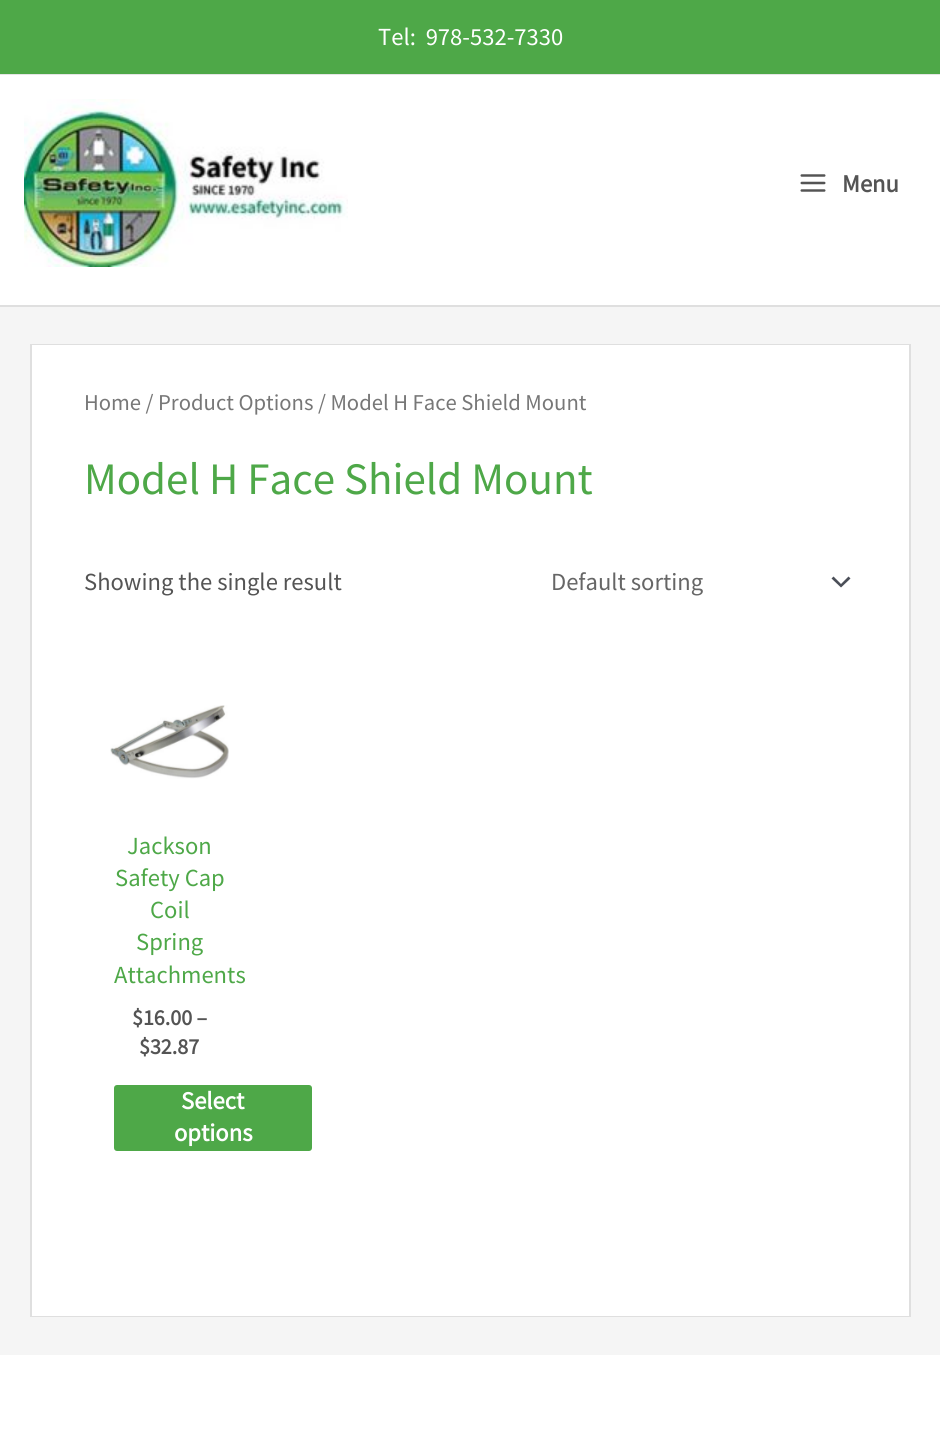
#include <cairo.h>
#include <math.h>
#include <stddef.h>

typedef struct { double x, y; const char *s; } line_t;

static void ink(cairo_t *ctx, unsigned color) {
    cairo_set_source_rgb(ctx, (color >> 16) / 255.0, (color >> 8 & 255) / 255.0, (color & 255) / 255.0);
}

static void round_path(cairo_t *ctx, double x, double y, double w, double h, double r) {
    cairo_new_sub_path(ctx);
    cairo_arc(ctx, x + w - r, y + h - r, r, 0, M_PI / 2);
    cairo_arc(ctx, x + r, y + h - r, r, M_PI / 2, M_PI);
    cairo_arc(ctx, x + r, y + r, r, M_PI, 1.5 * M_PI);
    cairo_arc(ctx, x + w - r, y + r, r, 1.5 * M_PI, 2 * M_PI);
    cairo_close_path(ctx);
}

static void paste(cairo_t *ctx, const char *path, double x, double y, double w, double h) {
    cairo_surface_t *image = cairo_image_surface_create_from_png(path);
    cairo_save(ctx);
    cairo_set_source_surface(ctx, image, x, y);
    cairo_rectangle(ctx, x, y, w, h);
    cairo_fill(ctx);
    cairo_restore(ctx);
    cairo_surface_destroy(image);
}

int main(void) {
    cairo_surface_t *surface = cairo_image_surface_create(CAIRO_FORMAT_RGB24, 940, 1440);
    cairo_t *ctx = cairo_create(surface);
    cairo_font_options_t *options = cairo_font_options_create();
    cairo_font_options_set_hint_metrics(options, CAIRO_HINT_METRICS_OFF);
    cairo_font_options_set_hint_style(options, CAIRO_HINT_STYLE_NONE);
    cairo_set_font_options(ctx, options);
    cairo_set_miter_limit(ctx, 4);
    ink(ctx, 0xF5F5F5);
    cairo_paint(ctx);
    ink(ctx, 0x4EA848);
    cairo_rectangle(ctx, 0, 0, 940, 74);
    cairo_fill(ctx);
    ink(ctx, 0xE5E5E5);
    cairo_rectangle(ctx, 0, 74, 940, 1);
    cairo_fill(ctx);
    cairo_select_font_face(ctx, "Source Sans Pro", CAIRO_FONT_SLANT_NORMAL, CAIRO_FONT_WEIGHT_NORMAL);
    cairo_set_font_size(ctx, 24.6);
    ink(ctx, 0xFFFFFF);
    cairo_move_to(ctx, 378, 45);
    cairo_show_text(ctx, "Tel:  978-532-7330");
    cairo_rectangle(ctx, 0, 75, 940, 230);
    cairo_fill(ctx);
    ink(ctx, 0xDFDFDF);
    cairo_rectangle(ctx, 0, 305, 940, 2);
    cairo_fill(ctx);
    paste(ctx, "media/1.png", 24, 99, 324, 168);
    paste(ctx, "media/2.png", 800, 174, 26, 18);
    cairo_select_font_face(ctx, "Source Sans Pro", CAIRO_FONT_SLANT_NORMAL, CAIRO_FONT_WEIGHT_BOLD);
    ink(ctx, 0x545454);
    cairo_move_to(ctx, 842, 192);
    cairo_show_text(ctx, "Menu");
    cairo_rectangle(ctx, 31, 345, 879, 971);
    ink(ctx, 0xDFDFDF);
    cairo_stroke(ctx);
    ink(ctx, 0xFFFFFF);
    cairo_rectangle(ctx, 32, 345, 877, 971);
    cairo_fill(ctx);
    cairo_select_font_face(ctx, "Source Sans Pro", CAIRO_FONT_SLANT_NORMAL, CAIRO_FONT_WEIGHT_NORMAL);
    cairo_set_font_size(ctx, 22.65);
    ink(ctx, 0x777777);
    cairo_move_to(ctx, 84, 410);
    cairo_show_text(ctx, "Home / Product Options / Model H Face Shield Mount");
    cairo_set_font_size(ctx, 45);
    ink(ctx, 0x4EA848);
    cairo_move_to(ctx, 84, 494);
    cairo_show_text(ctx, "Model H Face Shield Mount");
    cairo_set_font_size(ctx, 24.6);
    ink(ctx, 0x545454);
    cairo_move_to(ctx, 84, 590);
    cairo_show_text(ctx, "Showing the single result");
    ink(ctx, 0x4B4F58);
    cairo_new_path(ctx);
    cairo_move_to(ctx, 831.5, 578.5);
    cairo_line_to(ctx, 841, 587.5);
    cairo_line_to(ctx, 850.5, 578.5);
    cairo_line_to(ctx, 848.5, 576.5);
    cairo_line_to(ctx, 841, 584);
    cairo_line_to(ctx, 833.5, 576.5);
    cairo_close_path(ctx);
    cairo_fill(ctx);
    ink(ctx, 0x666666);
    cairo_move_to(ctx, 551, 590);
    cairo_show_text(ctx, "Default sorting");
    paste(ctx, "media/3.png", 110, 705, 119, 74);
    ink(ctx, 0x4EA848);
    {
        static const line_t items[] = {
            {127, 854, "Jackson"},
            {115, 886, "Safety Cap"},
            {150, 918, "Coil"},
            {136, 950, "Spring"},
            {114, 983, "Attachments"},
        };
        for (size_t i = 0; i < sizeof items / sizeof *items; i++) {
            cairo_move_to(ctx, items[i].x, items[i].y);
            cairo_show_text(ctx, items[i].s);
        }
    }
    cairo_select_font_face(ctx, "Source Sans Pro", CAIRO_FONT_SLANT_NORMAL, CAIRO_FONT_WEIGHT_BOLD);
    cairo_set_font_size(ctx, 22);
    ink(ctx, 0x545454);
    cairo_move_to(ctx, 132, 1025);
    cairo_show_text(ctx, "$16.00 –");
    cairo_move_to(ctx, 139, 1054);
    cairo_show_text(ctx, "$32.87");
    ink(ctx, 0x4EA848);
    round_path(ctx, 114, 1085, 198, 66, 3);
    cairo_fill(ctx);
    cairo_set_font_size(ctx, 24.6);
    ink(ctx, 0xFFFFFF);
    cairo_move_to(ctx, 181, 1109);
    cairo_show_text(ctx, "Select");
    cairo_move_to(ctx, 174, 1141);
    cairo_show_text(ctx, "options");
    cairo_rectangle(ctx, 0, 1355, 940, 85);
    cairo_fill(ctx);
    cairo_surface_write_to_png(surface, "image.png");
    cairo_font_options_destroy(options);
    cairo_destroy(ctx);
    cairo_surface_destroy(surface);
    return 0;
}
